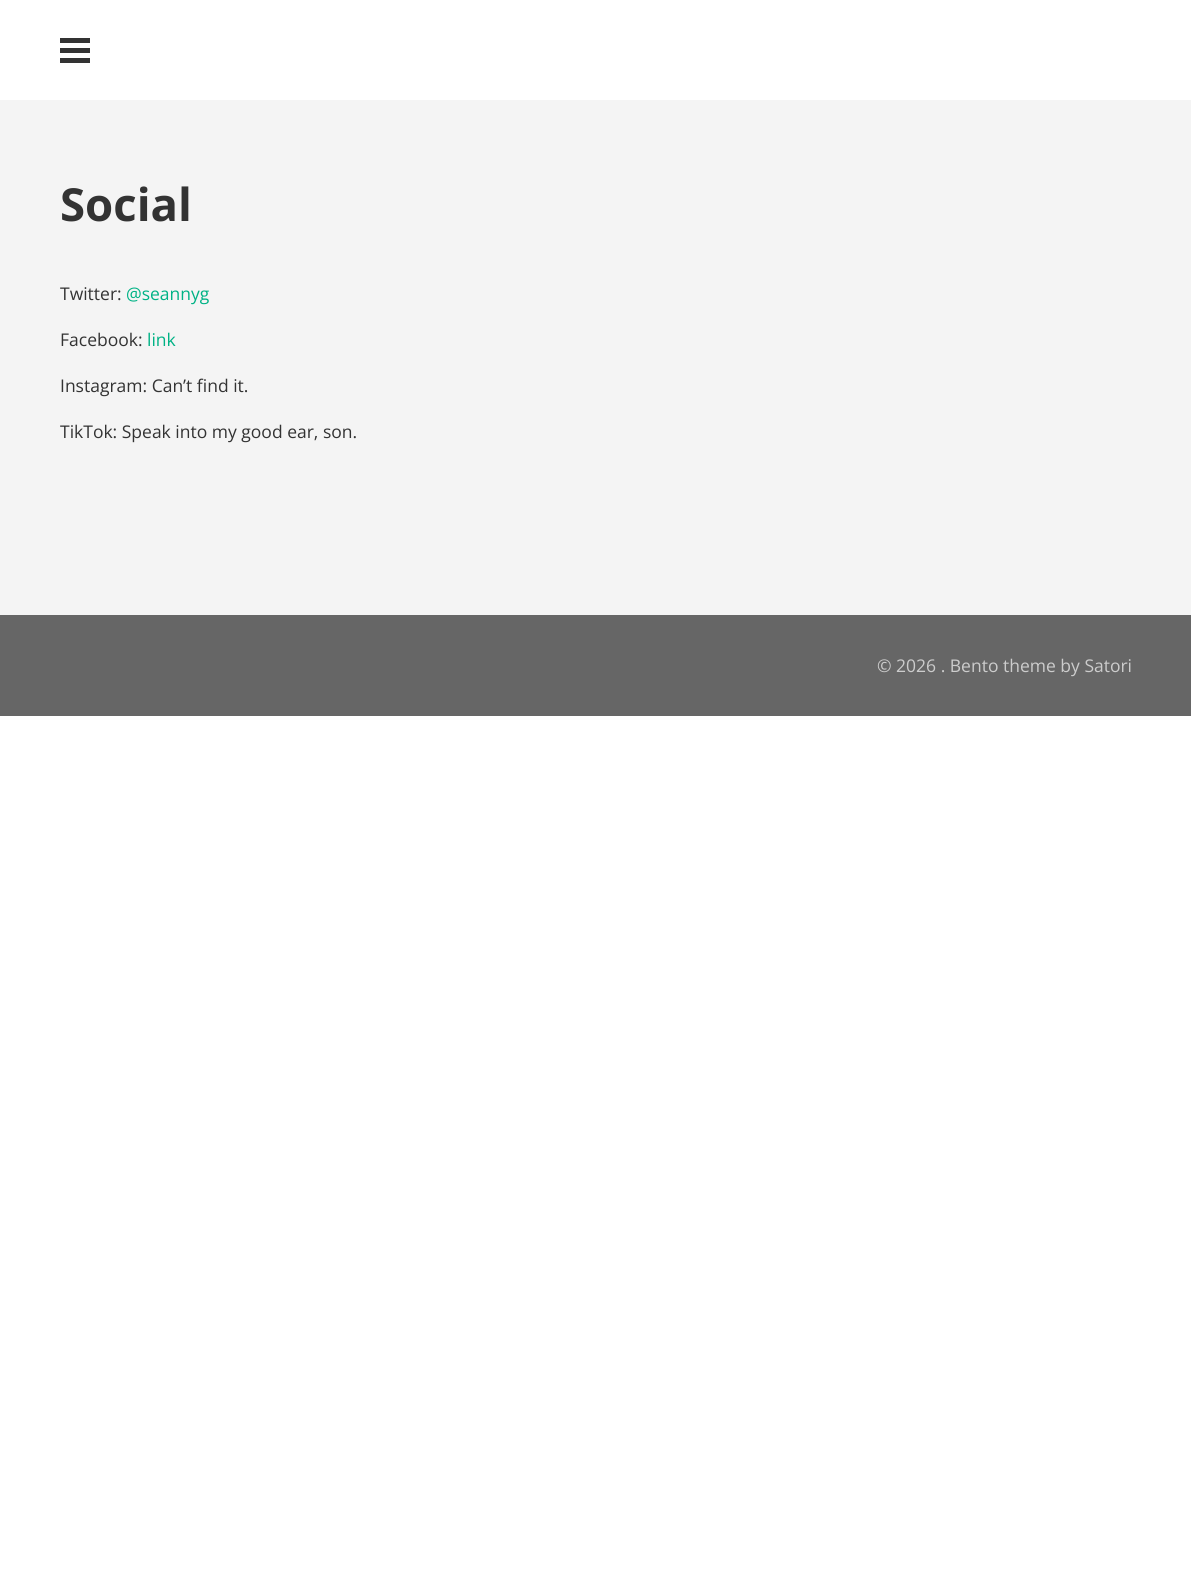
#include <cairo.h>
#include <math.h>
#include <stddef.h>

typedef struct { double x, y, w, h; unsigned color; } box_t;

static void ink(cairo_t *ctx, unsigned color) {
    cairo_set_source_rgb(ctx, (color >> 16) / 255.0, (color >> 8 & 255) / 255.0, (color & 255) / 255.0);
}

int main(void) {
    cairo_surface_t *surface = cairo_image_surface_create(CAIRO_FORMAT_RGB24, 1191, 1580);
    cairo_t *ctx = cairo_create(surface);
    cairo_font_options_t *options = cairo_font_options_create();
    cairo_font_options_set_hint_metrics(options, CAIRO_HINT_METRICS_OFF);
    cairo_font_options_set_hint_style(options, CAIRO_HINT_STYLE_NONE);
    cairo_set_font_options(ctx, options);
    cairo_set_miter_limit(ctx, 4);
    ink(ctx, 0xFFFFFF);
    cairo_paint(ctx);
    {
        static const box_t items[] = {
            {60, 38, 30, 5, 0x333333},
            {60, 48, 30, 5, 0x333333},
            {60, 58, 30, 5, 0x333333},
            {0, 100, 1191, 515, 0xF4F4F4},
        };
        for (size_t i = 0; i < sizeof items / sizeof *items; i++) {
            ink(ctx, items[i].color);
            cairo_rectangle(ctx, items[i].x, items[i].y, items[i].w, items[i].h);
            cairo_fill(ctx);
        }
    }
    cairo_select_font_face(ctx, "Open Sans", CAIRO_FONT_SLANT_NORMAL, CAIRO_FONT_WEIGHT_BOLD);
    cairo_set_font_size(ctx, 45.5);
    ink(ctx, 0x333333);
    cairo_move_to(ctx, 60, 221);
    cairo_show_text(ctx, "Social");
    cairo_select_font_face(ctx, "Open Sans", CAIRO_FONT_SLANT_NORMAL, CAIRO_FONT_WEIGHT_NORMAL);
    cairo_set_font_size(ctx, 17.5);
    cairo_move_to(ctx, 60, 300);
    cairo_show_text(ctx, "Twitter:");
    ink(ctx, 0x00B285);
    cairo_move_to(ctx, 126, 300);
    cairo_show_text(ctx, "@seannyg");
    ink(ctx, 0x333333);
    cairo_move_to(ctx, 60, 346);
    cairo_show_text(ctx, "Facebook:");
    ink(ctx, 0x00B285);
    cairo_move_to(ctx, 147, 346);
    cairo_show_text(ctx, "link");
    ink(ctx, 0x333333);
    cairo_move_to(ctx, 60, 392);
    cairo_show_text(ctx, "Instagram: Can’t find it.");
    cairo_move_to(ctx, 60, 438);
    cairo_show_text(ctx, "TikTok: Speak into my good ear, son.");
    ink(ctx, 0x666666);
    cairo_rectangle(ctx, 0, 615, 1191, 101);
    cairo_fill(ctx);
    ink(ctx, 0xCCCCCC);
    cairo_move_to(ctx, 877, 672);
    cairo_show_text(ctx, "© 2026 . Bento theme by Satori");
    cairo_surface_write_to_png(surface, "image.png");
    cairo_font_options_destroy(options);
    cairo_destroy(ctx);
    cairo_surface_destroy(surface);
    return 0;
}
